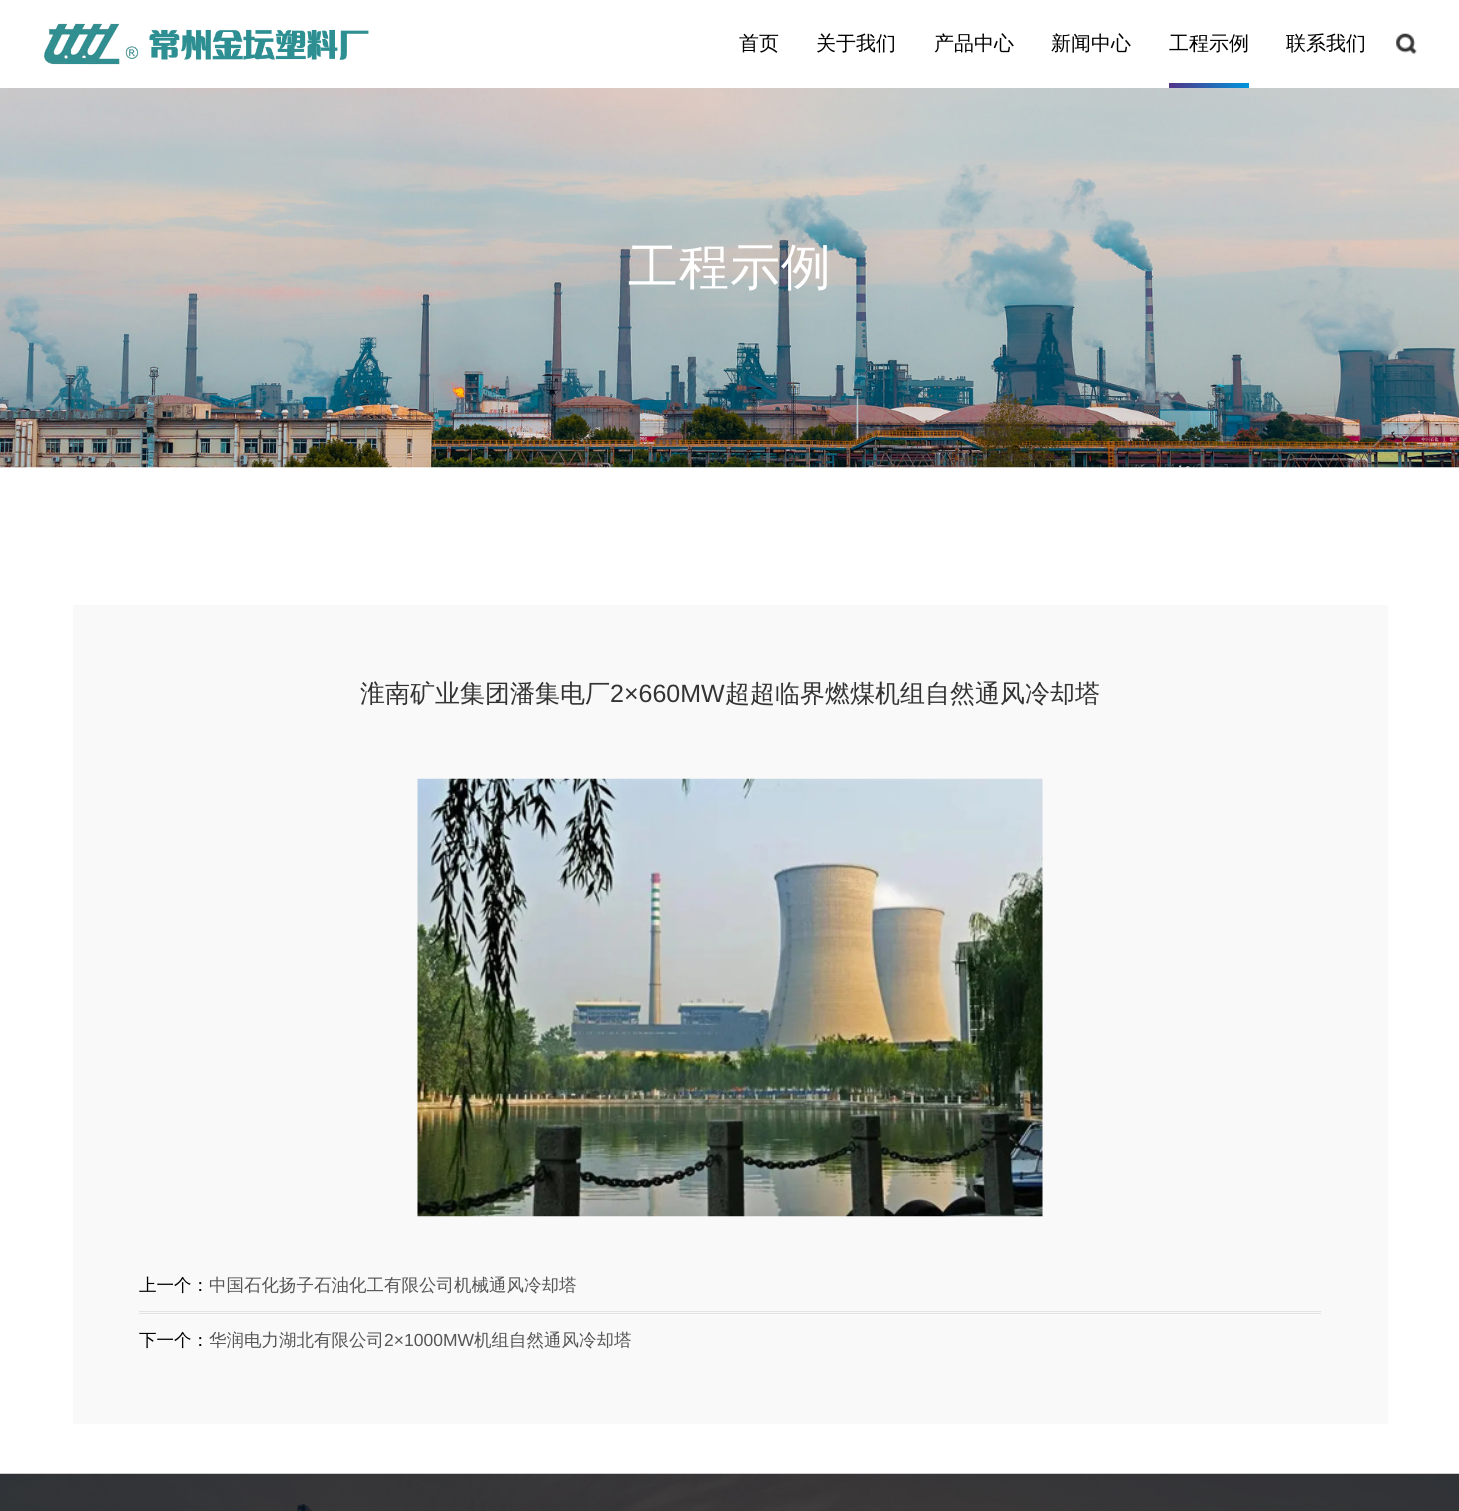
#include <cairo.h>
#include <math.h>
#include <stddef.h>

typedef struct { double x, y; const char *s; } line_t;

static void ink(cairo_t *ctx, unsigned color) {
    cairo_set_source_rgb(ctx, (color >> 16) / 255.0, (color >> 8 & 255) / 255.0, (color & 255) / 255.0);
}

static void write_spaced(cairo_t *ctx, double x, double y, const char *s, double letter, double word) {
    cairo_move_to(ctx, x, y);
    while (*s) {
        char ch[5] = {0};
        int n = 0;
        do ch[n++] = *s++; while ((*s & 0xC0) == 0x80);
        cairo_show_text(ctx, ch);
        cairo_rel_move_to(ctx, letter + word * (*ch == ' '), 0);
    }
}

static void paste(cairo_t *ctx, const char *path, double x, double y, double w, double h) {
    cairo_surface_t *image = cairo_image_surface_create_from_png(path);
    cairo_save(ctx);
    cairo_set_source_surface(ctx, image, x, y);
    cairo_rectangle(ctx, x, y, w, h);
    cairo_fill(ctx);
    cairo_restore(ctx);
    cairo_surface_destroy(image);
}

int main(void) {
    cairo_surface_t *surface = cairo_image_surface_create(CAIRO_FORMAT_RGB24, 1459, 1511);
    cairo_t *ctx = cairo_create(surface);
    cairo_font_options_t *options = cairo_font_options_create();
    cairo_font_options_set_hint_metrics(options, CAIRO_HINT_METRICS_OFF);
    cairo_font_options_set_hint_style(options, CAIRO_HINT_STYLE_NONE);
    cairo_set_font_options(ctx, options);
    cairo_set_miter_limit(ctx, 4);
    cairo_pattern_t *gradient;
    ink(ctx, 0xFFFFFF);
    cairo_paint(ctx);
    paste(ctx, "media/1.png", 44, 23, 325, 42);
    cairo_select_font_face(ctx, "WenQuanYi Zen Hei Medium", CAIRO_FONT_SLANT_NORMAL, CAIRO_FONT_WEIGHT_NORMAL);
    cairo_set_font_size(ctx, 20);
    ink(ctx, 0x000000);
    {
        static const line_t items[] = {
            {739, 50, "首页"},
            {816, 50, "关于我们"},
            {934, 50, "产品中心"},
            {1051, 50, "新闻中心"},
            {1169, 50, "工程示例"},
        };
        for (size_t i = 0; i < sizeof items / sizeof *items; i++) {
            cairo_move_to(ctx, items[i].x, items[i].y);
            cairo_show_text(ctx, items[i].s);
        }
    }
    gradient = cairo_pattern_create_linear(1169, 85, 1249, 85);
    cairo_pattern_add_color_stop_rgba(gradient, 0, 0.322, 0.204, 0.533, 1);
    cairo_pattern_add_color_stop_rgba(gradient, 1, 0, 0.584, 0.859, 1);
    cairo_set_source(ctx, gradient);
    cairo_pattern_destroy(gradient);
    cairo_rectangle(ctx, 1169, 83, 80, 5);
    cairo_fill(ctx);
    ink(ctx, 0x000000);
    cairo_move_to(ctx, 1286, 50);
    cairo_show_text(ctx, "联系我们");
    paste(ctx, "media/2.png", 1396, 33, 21, 21);
    paste(ctx, "media/3.png", 0, 88, 1459, 380);
    cairo_set_font_size(ctx, 50);
    ink(ctx, 0xFFFFFF);
    write_spaced(ctx, 628, 284, "工程示例", 1, 0);
    ink(ctx, 0xF9F9F9);
    cairo_rectangle(ctx, 73, 605, 1315, 819);
    cairo_fill(ctx);
    cairo_set_font_size(ctx, 25);
    ink(ctx, 0x333333);
    cairo_move_to(ctx, 360, 702);
    cairo_show_text(ctx, "淮南矿业集团潘集电厂");
    cairo_select_font_face(ctx, "Liberation Sans", CAIRO_FONT_SLANT_NORMAL, CAIRO_FONT_WEIGHT_NORMAL);
    cairo_move_to(ctx, 610, 702);
    cairo_show_text(ctx, "2×660MW");
    cairo_select_font_face(ctx, "WenQuanYi Zen Hei Medium", CAIRO_FONT_SLANT_NORMAL, CAIRO_FONT_WEIGHT_NORMAL);
    cairo_move_to(ctx, 725, 702);
    cairo_show_text(ctx, "超超临界燃煤机组自然通风冷却塔");
    paste(ctx, "media/4.png", 417, 778, 626, 439);
    ink(ctx, 0xE2E2E2);
    cairo_rectangle(ctx, 139, 1311, 1182, 1);
    cairo_fill(ctx);
    cairo_set_font_size(ctx, 17.5);
    ink(ctx, 0x000000);
    cairo_move_to(ctx, 139, 1291);
    cairo_show_text(ctx, "上一个：");
    ink(ctx, 0x555555);
    cairo_move_to(ctx, 209, 1291);
    cairo_show_text(ctx, "中国石化扬子石油化工有限公司机械通风冷却塔");
    ink(ctx, 0xE2E2E2);
    cairo_rectangle(ctx, 139, 1313, 1182, 1);
    cairo_fill(ctx);
    ink(ctx, 0x000000);
    cairo_move_to(ctx, 139, 1346);
    cairo_show_text(ctx, "下一个：");
    ink(ctx, 0x555555);
    cairo_move_to(ctx, 209, 1346);
    cairo_show_text(ctx, "华润电力湖北有限公司");
    cairo_select_font_face(ctx, "Liberation Sans", CAIRO_FONT_SLANT_NORMAL, CAIRO_FONT_WEIGHT_NORMAL);
    cairo_move_to(ctx, 384, 1346);
    cairo_show_text(ctx, "2×1000MW");
    cairo_select_font_face(ctx, "WenQuanYi Zen Hei Medium", CAIRO_FONT_SLANT_NORMAL, CAIRO_FONT_WEIGHT_NORMAL);
    cairo_move_to(ctx, 474, 1346);
    cairo_show_text(ctx, "机组自然通风冷却塔");
    paste(ctx, "media/5.png", 0, 1473, 1459, 38);
    cairo_surface_write_to_png(surface, "image.png");
    cairo_font_options_destroy(options);
    cairo_destroy(ctx);
    cairo_surface_destroy(surface);
    return 0;
}
